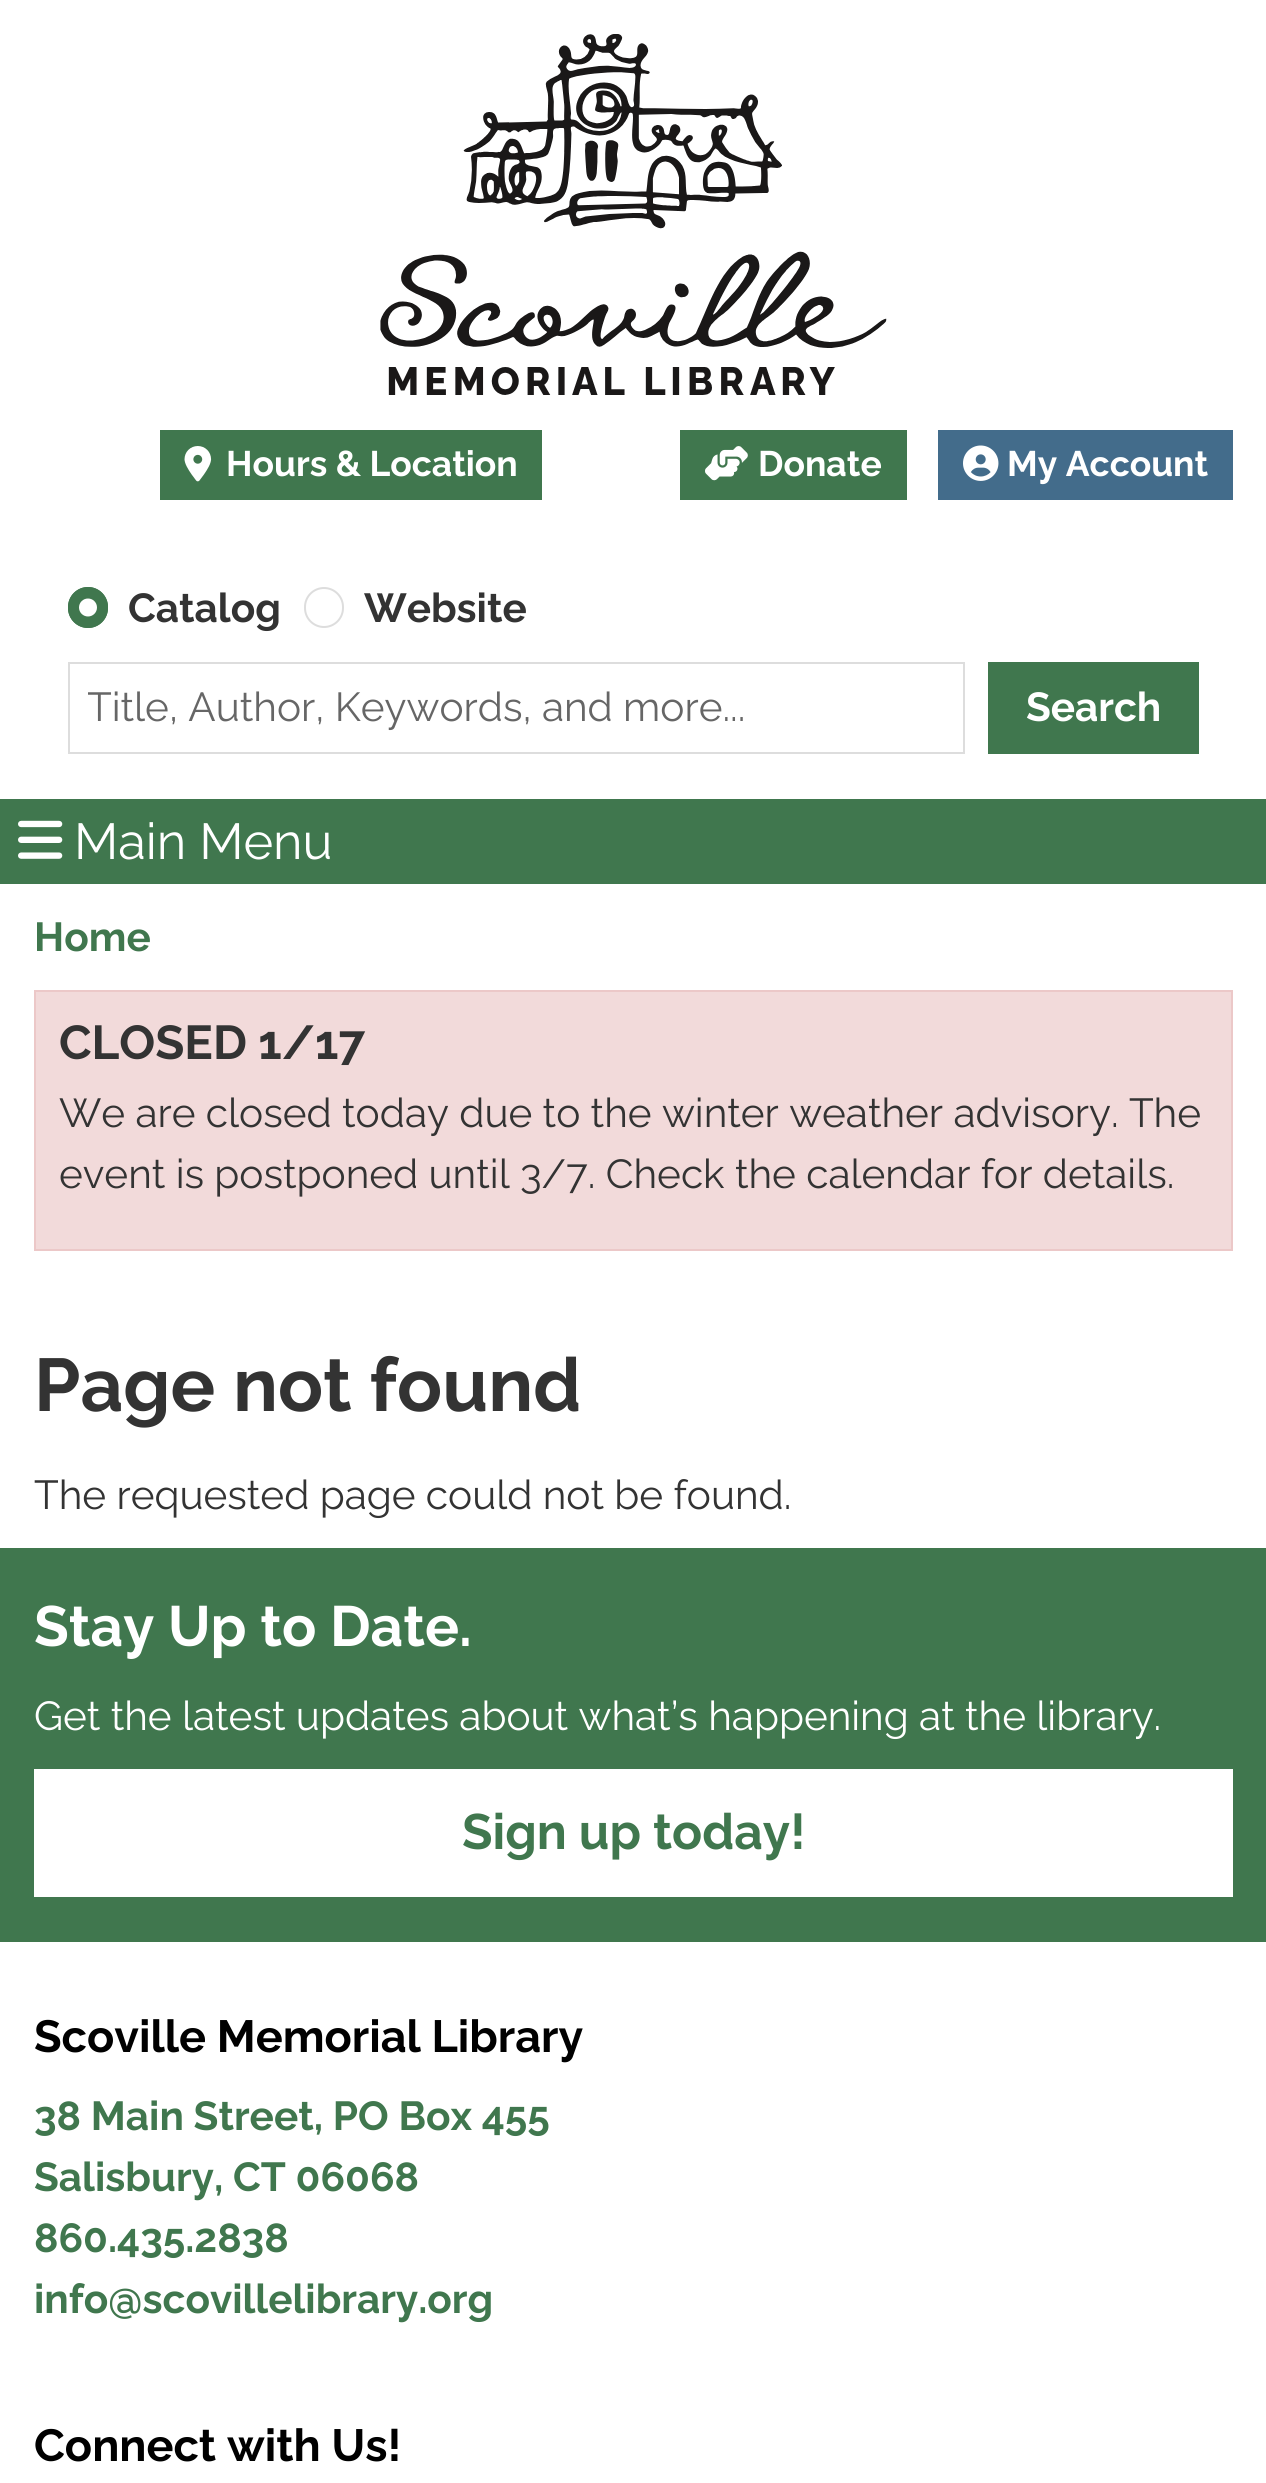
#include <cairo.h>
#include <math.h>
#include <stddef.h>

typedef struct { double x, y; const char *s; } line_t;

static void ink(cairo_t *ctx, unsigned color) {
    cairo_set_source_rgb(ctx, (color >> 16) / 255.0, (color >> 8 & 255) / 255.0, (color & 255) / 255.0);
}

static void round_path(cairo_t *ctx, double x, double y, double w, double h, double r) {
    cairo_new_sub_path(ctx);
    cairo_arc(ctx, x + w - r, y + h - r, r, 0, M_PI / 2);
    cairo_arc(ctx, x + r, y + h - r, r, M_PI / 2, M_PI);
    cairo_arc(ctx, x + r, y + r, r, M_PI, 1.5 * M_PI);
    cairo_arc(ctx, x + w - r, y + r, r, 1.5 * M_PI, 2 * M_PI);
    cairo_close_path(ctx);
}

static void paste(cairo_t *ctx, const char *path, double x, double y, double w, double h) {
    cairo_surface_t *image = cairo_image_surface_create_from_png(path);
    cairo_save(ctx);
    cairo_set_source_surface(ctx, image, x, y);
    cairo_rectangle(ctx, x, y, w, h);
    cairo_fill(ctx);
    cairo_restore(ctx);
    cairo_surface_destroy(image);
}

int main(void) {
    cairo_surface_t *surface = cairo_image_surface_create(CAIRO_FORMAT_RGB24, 1266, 2483);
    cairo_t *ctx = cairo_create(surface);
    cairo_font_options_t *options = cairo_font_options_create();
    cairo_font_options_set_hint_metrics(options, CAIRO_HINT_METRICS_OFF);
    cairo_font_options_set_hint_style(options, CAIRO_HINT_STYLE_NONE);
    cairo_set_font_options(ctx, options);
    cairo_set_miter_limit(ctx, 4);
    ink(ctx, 0xFFFFFF);
    cairo_paint(ctx);
    paste(ctx, "media/1.png", 380, 34, 507, 361);
    ink(ctx, 0x40774E);
    cairo_rectangle(ctx, 160, 430, 382, 70);
    cairo_fill(ctx);
    paste(ctx, "media/2.png", 184, 446, 28, 36);
    cairo_select_font_face(ctx, "Raleway", CAIRO_FONT_SLANT_NORMAL, CAIRO_FONT_WEIGHT_BOLD);
    cairo_set_font_size(ctx, 35.5);
    ink(ctx, 0xFFFFFF);
    cairo_move_to(ctx, 226, 476);
    cairo_show_text(ctx, "Hours & Location");
    ink(ctx, 0x40774E);
    cairo_rectangle(ctx, 680, 430, 227, 70);
    cairo_fill(ctx);
    paste(ctx, "media/3.png", 705, 446, 43, 35);
    ink(ctx, 0xFFFFFF);
    cairo_move_to(ctx, 758, 476);
    cairo_show_text(ctx, "Donate");
    ink(ctx, 0x436C8B);
    cairo_rectangle(ctx, 938, 430, 295, 70);
    cairo_fill(ctx);
    paste(ctx, "media/4.png", 963, 445, 36, 36);
    ink(ctx, 0xFFFFFF);
    cairo_move_to(ctx, 1007, 476);
    cairo_show_text(ctx, "My Account");
    ink(ctx, 0x40774E);
    round_path(ctx, 68, 587, 40, 41, 20);
    cairo_fill(ctx);
    ink(ctx, 0xFFFFFF);
    cairo_arc(ctx, 88, 607.5, 9, 0, 2 * M_PI);
    cairo_fill(ctx);
    round_path(ctx, 69, 588, 38, 39, 19);
    ink(ctx, 0x40774E);
    cairo_stroke(ctx);
    cairo_set_font_size(ctx, 40.5);
    ink(ctx, 0x333333);
    cairo_move_to(ctx, 128, 622);
    cairo_show_text(ctx, "Catalog");
    round_path(ctx, 305, 588, 38, 39, 19);
    ink(ctx, 0xDDDDDD);
    cairo_stroke(ctx);
    ink(ctx, 0x333333);
    cairo_move_to(ctx, 364, 622);
    cairo_show_text(ctx, "Website");
    cairo_rectangle(ctx, 69, 663, 895, 90);
    ink(ctx, 0xDDDDDD);
    cairo_stroke(ctx);
    cairo_save(ctx);
    cairo_rectangle(ctx, 88, 684, 857, 47);
    cairo_clip(ctx);
    cairo_select_font_face(ctx, "Raleway", CAIRO_FONT_SLANT_NORMAL, CAIRO_FONT_WEIGHT_NORMAL);
    ink(ctx, 0x666666);
    cairo_move_to(ctx, 87, 721);
    cairo_show_text(ctx, "Title, Author, Keywords, and more...");
    cairo_restore(ctx);
    ink(ctx, 0x40774E);
    cairo_rectangle(ctx, 988, 662, 211, 92);
    cairo_fill(ctx);
    ink(ctx, 0xFFFFFF);
    cairo_move_to(ctx, 1026, 721);
    cairo_show_text(ctx, "Search");
    ink(ctx, 0x40774E);
    cairo_rectangle(ctx, 0, 799, 1266, 85);
    cairo_fill(ctx);
    paste(ctx, "media/5.png", 18, 820, 45, 39);
    cairo_select_font_face(ctx, "Raleway", CAIRO_FONT_SLANT_NORMAL, CAIRO_FONT_WEIGHT_NORMAL);
    cairo_set_font_size(ctx, 50.5);
    ink(ctx, 0xFFFFFF);
    cairo_move_to(ctx, 74, 859);
    cairo_show_text(ctx, "Main Menu");
    cairo_select_font_face(ctx, "Raleway", CAIRO_FONT_SLANT_NORMAL, CAIRO_FONT_WEIGHT_BOLD);
    cairo_set_font_size(ctx, 40.5);
    ink(ctx, 0x40774E);
    cairo_move_to(ctx, 34, 951);
    cairo_show_text(ctx, "Home");
    ink(ctx, 0xF2DADA);
    cairo_rectangle(ctx, 35, 991, 1197, 259);
    cairo_fill_preserve(ctx);
    ink(ctx, 0xECC8C8);
    cairo_stroke(ctx);
    cairo_set_font_size(ctx, 47.5);
    ink(ctx, 0x333333);
    cairo_move_to(ctx, 59, 1059);
    cairo_show_text(ctx, "CLOSED 1/17");
    cairo_select_font_face(ctx, "Raleway", CAIRO_FONT_SLANT_NORMAL, CAIRO_FONT_WEIGHT_NORMAL);
    cairo_set_font_size(ctx, 40.5);
    cairo_move_to(ctx, 59, 1127);
    cairo_show_text(ctx, "We are closed today due to the winter weather advisory. The");
    cairo_move_to(ctx, 59, 1188);
    cairo_show_text(ctx, "event is postponed until 3/7. Check the calendar for details.");
    cairo_select_font_face(ctx, "Raleway", CAIRO_FONT_SLANT_NORMAL, CAIRO_FONT_WEIGHT_BOLD);
    cairo_set_font_size(ctx, 74.5);
    cairo_move_to(ctx, 34, 1411);
    cairo_show_text(ctx, "Page not found");
    cairo_select_font_face(ctx, "Raleway", CAIRO_FONT_SLANT_NORMAL, CAIRO_FONT_WEIGHT_NORMAL);
    cairo_set_font_size(ctx, 40.5);
    cairo_move_to(ctx, 34, 1509);
    cairo_show_text(ctx, "The requested page could not be found.");
    ink(ctx, 0x40774E);
    cairo_rectangle(ctx, 0, 1548, 1266, 394);
    cairo_fill(ctx);
    cairo_select_font_face(ctx, "Raleway", CAIRO_FONT_SLANT_NORMAL, CAIRO_FONT_WEIGHT_BOLD);
    cairo_set_font_size(ctx, 56.75);
    ink(ctx, 0xFFFFFF);
    cairo_move_to(ctx, 34, 1646);
    cairo_show_text(ctx, "Stay Up to Date.");
    cairo_select_font_face(ctx, "Raleway", CAIRO_FONT_SLANT_NORMAL, CAIRO_FONT_WEIGHT_NORMAL);
    cairo_set_font_size(ctx, 40.5);
    cairo_move_to(ctx, 34, 1730);
    cairo_show_text(ctx, "Get the latest updates about what’s happening at the library.");
    cairo_rectangle(ctx, 34, 1769, 1199, 128);
    cairo_fill(ctx);
    cairo_select_font_face(ctx, "Raleway", CAIRO_FONT_SLANT_NORMAL, CAIRO_FONT_WEIGHT_BOLD);
    cairo_set_font_size(ctx, 49.75);
    ink(ctx, 0x40774E);
    cairo_move_to(ctx, 462, 1849);
    cairo_show_text(ctx, "Sign up today!");
    cairo_set_font_size(ctx, 45);
    ink(ctx, 0x000000);
    cairo_move_to(ctx, 34, 2052);
    cairo_show_text(ctx, "Scoville Memorial Library");
    cairo_set_font_size(ctx, 40.5);
    ink(ctx, 0x40774E);
    {
        static const line_t items[] = {
            {34, 2130, "38 Main Street, PO Box 455"},
            {34, 2191, "Salisbury, CT 06068"},
            {34, 2252, "860.435.2838"},
            {34, 2313, "info@scovillelibrary.org"},
        };
        for (size_t i = 0; i < sizeof items / sizeof *items; i++) {
            cairo_move_to(ctx, items[i].x, items[i].y);
            cairo_show_text(ctx, items[i].s);
        }
    }
    cairo_set_font_size(ctx, 45);
    ink(ctx, 0x000000);
    cairo_move_to(ctx, 34, 2461);
    cairo_show_text(ctx, "Connect with Us!");
    cairo_surface_write_to_png(surface, "image.png");
    cairo_font_options_destroy(options);
    cairo_destroy(ctx);
    cairo_surface_destroy(surface);
    return 0;
}
